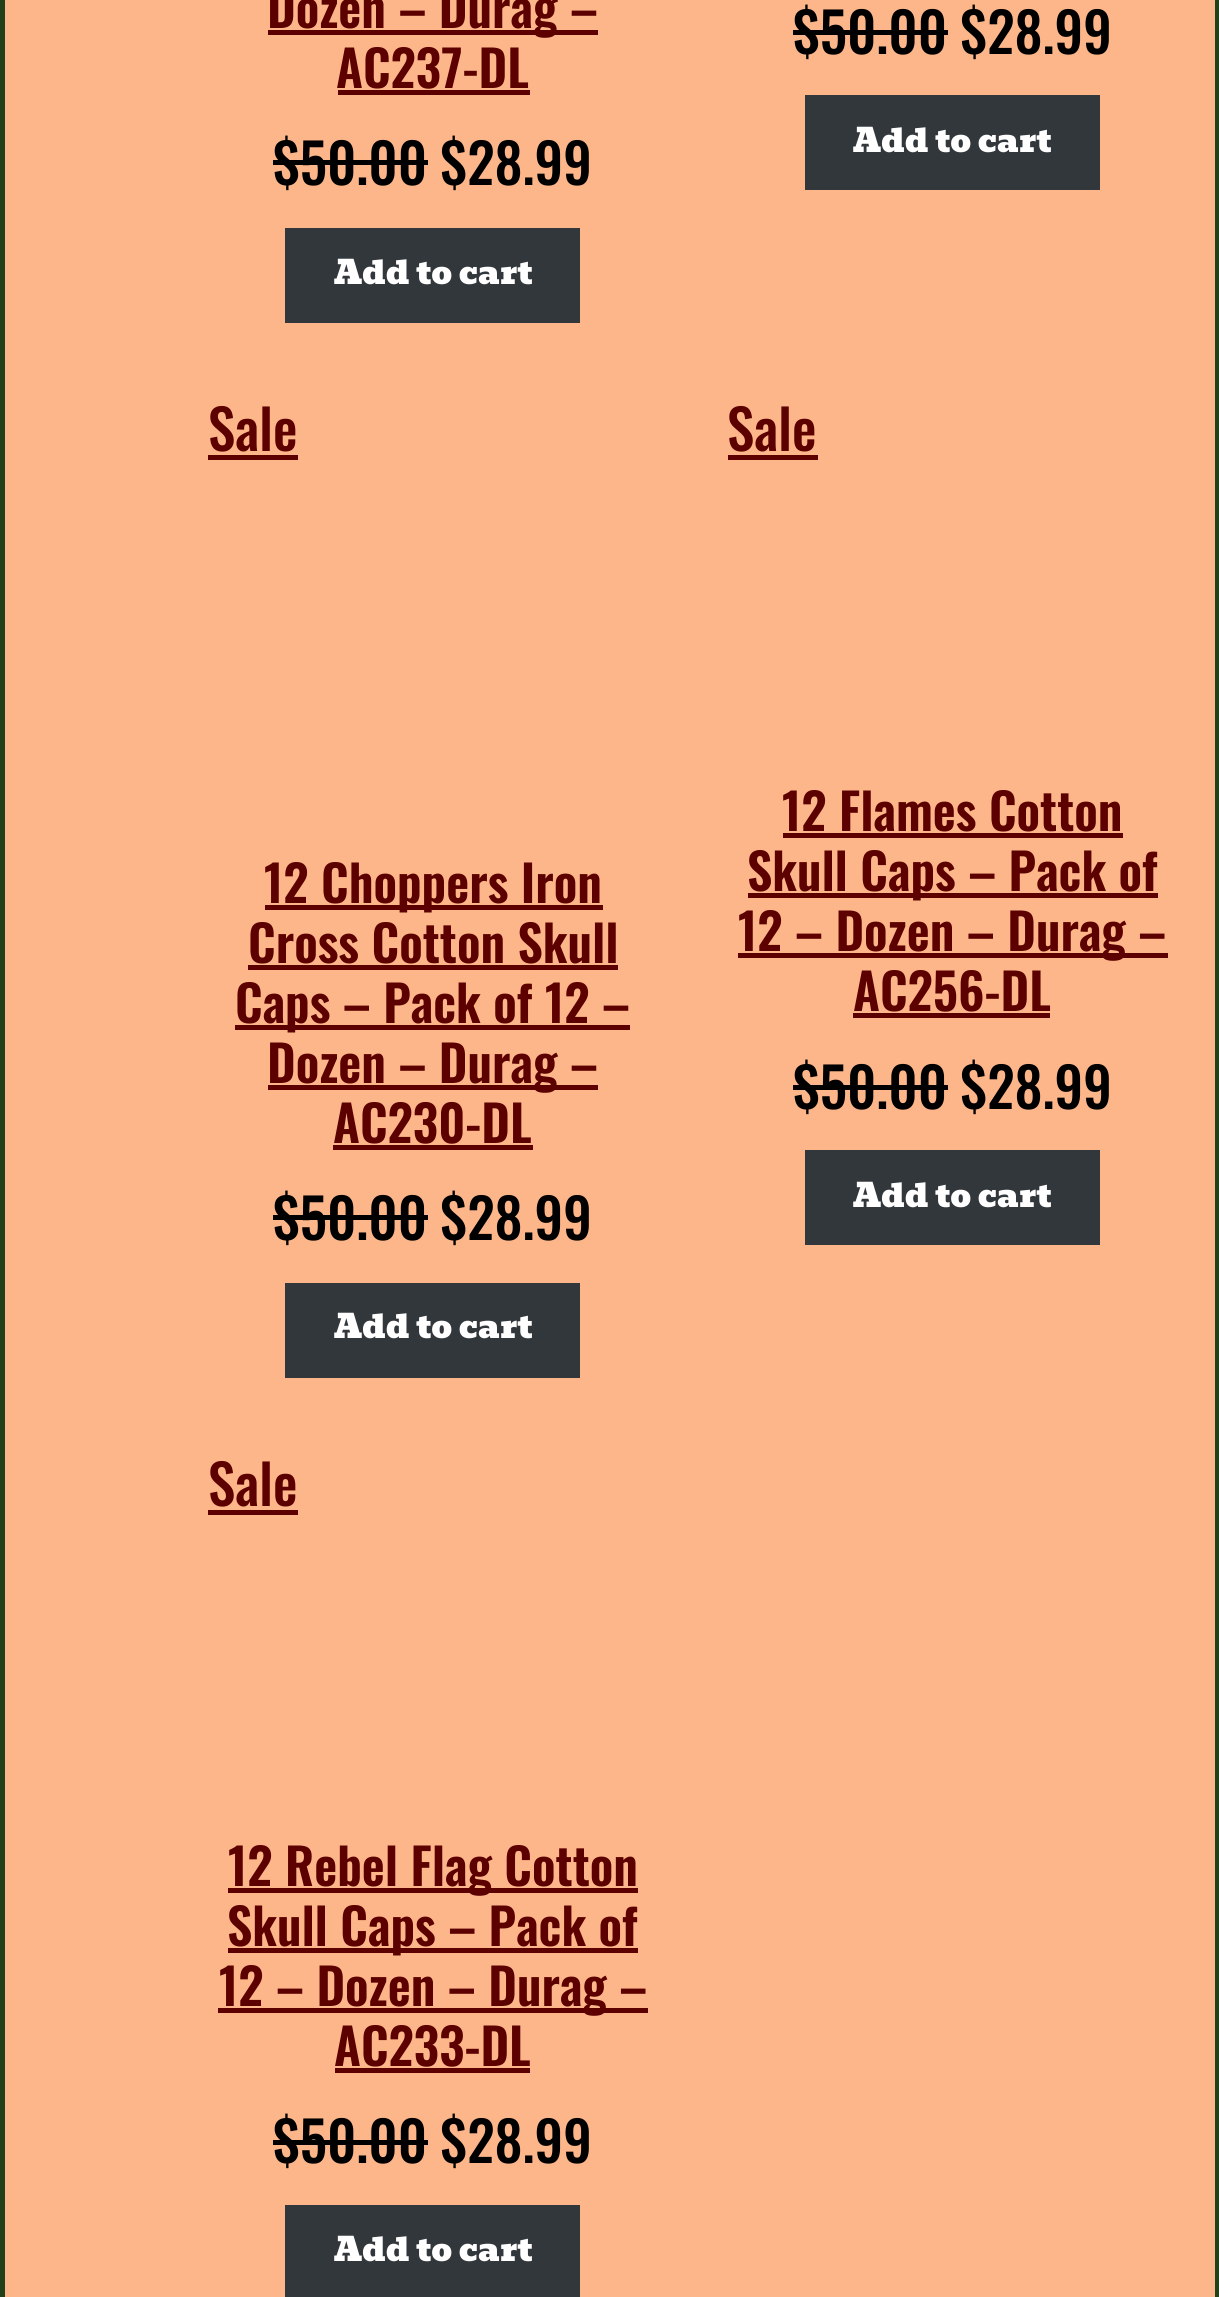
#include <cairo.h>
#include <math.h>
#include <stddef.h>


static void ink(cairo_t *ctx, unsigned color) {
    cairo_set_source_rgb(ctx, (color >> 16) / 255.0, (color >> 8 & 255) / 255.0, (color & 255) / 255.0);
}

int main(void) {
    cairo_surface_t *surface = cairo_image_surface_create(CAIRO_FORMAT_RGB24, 1219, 2297);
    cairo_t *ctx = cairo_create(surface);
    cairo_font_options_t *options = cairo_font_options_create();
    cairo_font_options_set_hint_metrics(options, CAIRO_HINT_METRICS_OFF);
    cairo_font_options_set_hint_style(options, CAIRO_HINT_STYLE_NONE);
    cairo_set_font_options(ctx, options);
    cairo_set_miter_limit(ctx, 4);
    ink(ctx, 0x22411B);
    cairo_paint(ctx);
    ink(ctx, 0xFDB68A);
    cairo_rectangle(ctx, 5, 0, 1210, 2297);
    cairo_fill(ctx);
    ink(ctx, 0x5C0000);
    cairo_rectangle(ctx, 268, 30, 330, 5);
    cairo_fill(ctx);
    cairo_select_font_face(ctx, "Oswald SemiBold", CAIRO_FONT_SLANT_NORMAL, CAIRO_FONT_WEIGHT_NORMAL);
    cairo_set_font_size(ctx, 50);
    cairo_move_to(ctx, 267, 28);
    cairo_show_text(ctx, "Dozen – Durag –");
    cairo_move_to(ctx, 336, 88);
    cairo_show_text(ctx, "AC237-DL");
    cairo_rectangle(ctx, 338, 90, 192, 5);
    cairo_fill(ctx);
    cairo_select_font_face(ctx, "Oswald Medium", CAIRO_FONT_SLANT_NORMAL, CAIRO_FONT_WEIGHT_NORMAL);
    cairo_set_font_size(ctx, 55);
    ink(ctx, 0x000000);
    cairo_move_to(ctx, 273, 185);
    cairo_show_text(ctx, "$50.00 $28.99");
    cairo_rectangle(ctx, 273, 160, 155, 5);
    cairo_fill(ctx);
    ink(ctx, 0x32373C);
    cairo_rectangle(ctx, 285, 228, 295, 95);
    cairo_fill(ctx);
    cairo_select_font_face(ctx, "Bevan", CAIRO_FONT_SLANT_NORMAL, CAIRO_FONT_WEIGHT_NORMAL);
    cairo_set_font_size(ctx, 32.5);
    ink(ctx, 0xFFFFFF);
    cairo_move_to(ctx, 334, 284);
    cairo_show_text(ctx, "Add to cart");
    cairo_select_font_face(ctx, "Oswald Medium", CAIRO_FONT_SLANT_NORMAL, CAIRO_FONT_WEIGHT_NORMAL);
    cairo_set_font_size(ctx, 55);
    ink(ctx, 0x000000);
    cairo_move_to(ctx, 793, 54);
    cairo_show_text(ctx, "$50.00 $28.99");
    cairo_rectangle(ctx, 793, 30, 155, 5);
    cairo_fill(ctx);
    ink(ctx, 0x32373C);
    cairo_rectangle(ctx, 805, 95, 295, 95);
    cairo_fill(ctx);
    cairo_select_font_face(ctx, "Bevan", CAIRO_FONT_SLANT_NORMAL, CAIRO_FONT_WEIGHT_NORMAL);
    cairo_set_font_size(ctx, 32.5);
    ink(ctx, 0xFFFFFF);
    cairo_move_to(ctx, 853, 152);
    cairo_show_text(ctx, "Add to cart");
    cairo_select_font_face(ctx, "Oswald Medium", CAIRO_FONT_SLANT_NORMAL, CAIRO_FONT_WEIGHT_NORMAL);
    cairo_set_font_size(ctx, 55);
    ink(ctx, 0x5C0000);
    cairo_move_to(ctx, 208, 451);
    cairo_show_text(ctx, "Sale");
    cairo_rectangle(ctx, 208, 455, 90, 5);
    cairo_fill(ctx);
    cairo_rectangle(ctx, 265, 905, 338, 5);
    cairo_fill(ctx);
    cairo_select_font_face(ctx, "Oswald SemiBold", CAIRO_FONT_SLANT_NORMAL, CAIRO_FONT_WEIGHT_NORMAL);
    cairo_set_font_size(ctx, 50);
    cairo_move_to(ctx, 264, 903);
    cairo_show_text(ctx, "12 Choppers Iron");
    cairo_move_to(ctx, 248, 963);
    cairo_show_text(ctx, "Cross Cotton Skull");
    cairo_rectangle(ctx, 248, 965, 370, 5);
    cairo_fill(ctx);
    cairo_rectangle(ctx, 235, 1025, 395, 5);
    cairo_fill(ctx);
    cairo_move_to(ctx, 235, 1023);
    cairo_show_text(ctx, "Caps – Pack of 12 –");
    cairo_rectangle(ctx, 268, 1085, 330, 5);
    cairo_fill(ctx);
    cairo_move_to(ctx, 267, 1083);
    cairo_show_text(ctx, "Dozen – Durag –");
    cairo_move_to(ctx, 333, 1143);
    cairo_show_text(ctx, "AC230-DL");
    cairo_rectangle(ctx, 333, 1145, 200, 5);
    cairo_fill(ctx);
    cairo_select_font_face(ctx, "Oswald Medium", CAIRO_FONT_SLANT_NORMAL, CAIRO_FONT_WEIGHT_NORMAL);
    cairo_set_font_size(ctx, 55);
    ink(ctx, 0x000000);
    cairo_move_to(ctx, 273, 1240);
    cairo_show_text(ctx, "$50.00 $28.99");
    cairo_rectangle(ctx, 273, 1215, 155, 5);
    cairo_fill(ctx);
    ink(ctx, 0x32373C);
    cairo_rectangle(ctx, 285, 1283, 295, 95);
    cairo_fill(ctx);
    cairo_select_font_face(ctx, "Bevan", CAIRO_FONT_SLANT_NORMAL, CAIRO_FONT_WEIGHT_NORMAL);
    cairo_set_font_size(ctx, 32.5);
    ink(ctx, 0xFFFFFF);
    cairo_move_to(ctx, 334, 1338);
    cairo_show_text(ctx, "Add to cart");
    cairo_select_font_face(ctx, "Oswald Medium", CAIRO_FONT_SLANT_NORMAL, CAIRO_FONT_WEIGHT_NORMAL);
    cairo_set_font_size(ctx, 55);
    ink(ctx, 0x5C0000);
    cairo_move_to(ctx, 727, 451);
    cairo_show_text(ctx, "Sale");
    cairo_rectangle(ctx, 728, 455, 90, 5);
    cairo_fill(ctx);
    cairo_select_font_face(ctx, "Oswald SemiBold", CAIRO_FONT_SLANT_NORMAL, CAIRO_FONT_WEIGHT_NORMAL);
    cairo_set_font_size(ctx, 50);
    cairo_move_to(ctx, 782, 831);
    cairo_show_text(ctx, "12 Flames Cotton");
    cairo_rectangle(ctx, 783, 833, 340, 5);
    cairo_fill(ctx);
    cairo_rectangle(ctx, 748, 893, 410, 5);
    cairo_fill(ctx);
    cairo_move_to(ctx, 747, 891);
    cairo_show_text(ctx, "Skull Caps – Pack of");
    cairo_rectangle(ctx, 738, 953, 430, 5);
    cairo_fill(ctx);
    cairo_move_to(ctx, 738, 951);
    cairo_show_text(ctx, "12 – Dozen – Durag –");
    cairo_move_to(ctx, 853, 1011);
    cairo_show_text(ctx, "AC256-DL");
    cairo_rectangle(ctx, 853, 1013, 197, 5);
    cairo_fill(ctx);
    cairo_select_font_face(ctx, "Oswald Medium", CAIRO_FONT_SLANT_NORMAL, CAIRO_FONT_WEIGHT_NORMAL);
    cairo_set_font_size(ctx, 55);
    ink(ctx, 0x000000);
    cairo_move_to(ctx, 793, 1109);
    cairo_show_text(ctx, "$50.00 $28.99");
    cairo_rectangle(ctx, 793, 1085, 155, 5);
    cairo_fill(ctx);
    ink(ctx, 0x32373C);
    cairo_rectangle(ctx, 805, 1150, 295, 95);
    cairo_fill(ctx);
    cairo_select_font_face(ctx, "Bevan", CAIRO_FONT_SLANT_NORMAL, CAIRO_FONT_WEIGHT_NORMAL);
    cairo_set_font_size(ctx, 32.5);
    ink(ctx, 0xFFFFFF);
    cairo_move_to(ctx, 853, 1207);
    cairo_show_text(ctx, "Add to cart");
    cairo_select_font_face(ctx, "Oswald Medium", CAIRO_FONT_SLANT_NORMAL, CAIRO_FONT_WEIGHT_NORMAL);
    cairo_set_font_size(ctx, 55);
    ink(ctx, 0x5C0000);
    cairo_move_to(ctx, 208, 1506);
    cairo_show_text(ctx, "Sale");
    cairo_rectangle(ctx, 208, 1510, 90, 5);
    cairo_fill(ctx);
    cairo_rectangle(ctx, 228, 1888, 410, 5);
    cairo_fill(ctx);
    cairo_select_font_face(ctx, "Oswald SemiBold", CAIRO_FONT_SLANT_NORMAL, CAIRO_FONT_WEIGHT_NORMAL);
    cairo_set_font_size(ctx, 50);
    cairo_move_to(ctx, 228, 1886);
    cairo_show_text(ctx, "12 Rebel Flag Cotton");
    cairo_rectangle(ctx, 228, 1948, 410, 5);
    cairo_fill(ctx);
    cairo_move_to(ctx, 227, 1946);
    cairo_show_text(ctx, "Skull Caps – Pack of");
    cairo_rectangle(ctx, 218, 2008, 430, 5);
    cairo_fill(ctx);
    cairo_move_to(ctx, 219, 2006);
    cairo_show_text(ctx, "12 – Dozen – Durag –");
    cairo_move_to(ctx, 334, 2066);
    cairo_show_text(ctx, "AC233-DL");
    cairo_rectangle(ctx, 335, 2068, 195, 5);
    cairo_fill(ctx);
    cairo_select_font_face(ctx, "Oswald Medium", CAIRO_FONT_SLANT_NORMAL, CAIRO_FONT_WEIGHT_NORMAL);
    cairo_set_font_size(ctx, 55);
    ink(ctx, 0x000000);
    cairo_move_to(ctx, 273, 2163);
    cairo_show_text(ctx, "$50.00 $28.99");
    cairo_rectangle(ctx, 273, 2140, 155, 5);
    cairo_fill(ctx);
    ink(ctx, 0x32373C);
    cairo_rectangle(ctx, 285, 2205, 295, 92);
    cairo_fill(ctx);
    cairo_select_font_face(ctx, "Bevan", CAIRO_FONT_SLANT_NORMAL, CAIRO_FONT_WEIGHT_NORMAL);
    cairo_set_font_size(ctx, 32.5);
    ink(ctx, 0xFFFFFF);
    cairo_move_to(ctx, 334, 2261);
    cairo_show_text(ctx, "Add to cart");
    cairo_surface_write_to_png(surface, "image.png");
    cairo_font_options_destroy(options);
    cairo_destroy(ctx);
    cairo_surface_destroy(surface);
    return 0;
}
